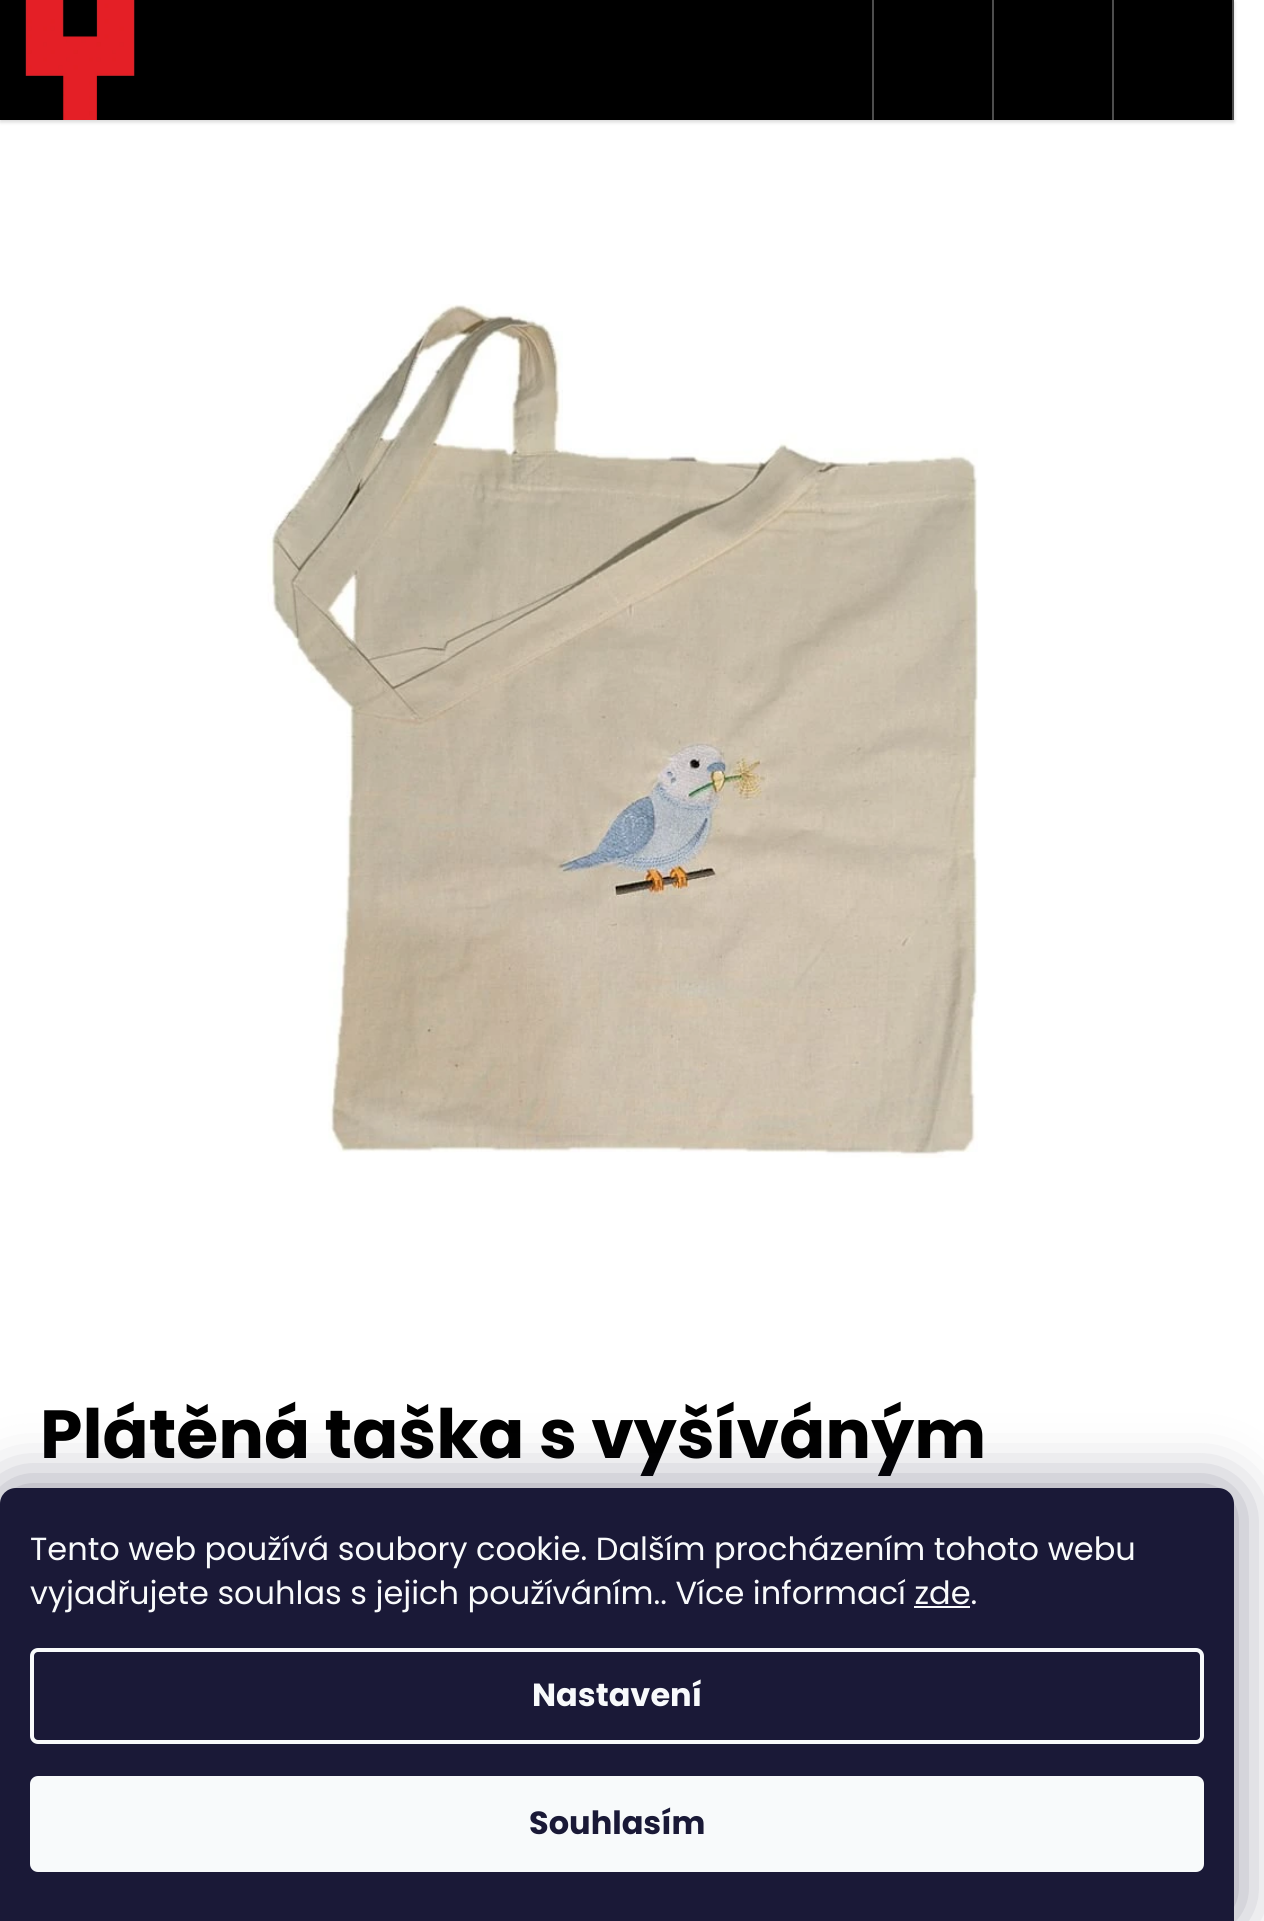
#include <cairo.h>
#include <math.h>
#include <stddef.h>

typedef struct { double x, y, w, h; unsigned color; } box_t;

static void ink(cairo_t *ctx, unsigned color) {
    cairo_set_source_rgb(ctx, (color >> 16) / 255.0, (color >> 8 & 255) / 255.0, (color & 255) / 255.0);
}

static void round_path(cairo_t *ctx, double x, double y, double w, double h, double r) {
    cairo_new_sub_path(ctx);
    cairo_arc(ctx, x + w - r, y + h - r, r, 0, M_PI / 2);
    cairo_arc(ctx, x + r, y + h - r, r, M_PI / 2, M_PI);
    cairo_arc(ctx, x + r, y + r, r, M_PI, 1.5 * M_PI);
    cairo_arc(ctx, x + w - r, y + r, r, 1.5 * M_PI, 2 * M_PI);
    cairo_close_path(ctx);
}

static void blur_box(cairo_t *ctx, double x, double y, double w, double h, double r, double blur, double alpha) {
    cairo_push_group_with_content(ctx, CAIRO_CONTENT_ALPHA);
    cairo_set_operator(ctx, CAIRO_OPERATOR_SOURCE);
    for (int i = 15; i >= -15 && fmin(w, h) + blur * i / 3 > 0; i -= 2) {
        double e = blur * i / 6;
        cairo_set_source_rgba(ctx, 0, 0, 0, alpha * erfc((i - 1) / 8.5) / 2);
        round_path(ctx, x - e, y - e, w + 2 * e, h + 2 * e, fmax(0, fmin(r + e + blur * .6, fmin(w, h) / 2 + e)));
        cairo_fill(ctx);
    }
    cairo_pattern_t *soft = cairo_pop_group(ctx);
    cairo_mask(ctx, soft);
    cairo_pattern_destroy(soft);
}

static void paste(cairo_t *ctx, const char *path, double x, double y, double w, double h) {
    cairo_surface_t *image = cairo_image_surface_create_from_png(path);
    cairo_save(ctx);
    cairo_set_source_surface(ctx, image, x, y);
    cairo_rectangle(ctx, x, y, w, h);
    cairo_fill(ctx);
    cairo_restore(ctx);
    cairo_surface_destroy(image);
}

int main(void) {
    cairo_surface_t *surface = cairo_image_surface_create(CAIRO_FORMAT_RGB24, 1264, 1921);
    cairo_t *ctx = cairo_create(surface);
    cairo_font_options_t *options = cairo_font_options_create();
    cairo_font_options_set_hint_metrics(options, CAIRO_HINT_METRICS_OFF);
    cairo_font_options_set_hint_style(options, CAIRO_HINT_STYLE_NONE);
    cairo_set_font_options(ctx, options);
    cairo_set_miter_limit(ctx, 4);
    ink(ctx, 0xFFFFFF);
    cairo_paint(ctx);
    ink(ctx, 0x000000);
    blur_box(ctx, 0, 2, 1234, 120, 0, 2, 0.16);
    ink(ctx, 0x000000);
    cairo_rectangle(ctx, 0, 0, 1232, 120);
    cairo_fill(ctx);
    paste(ctx, "media/1.png", 25, 0, 110, 120);
    {
        static const box_t items[] = {
            {1232, 0, 2, 120, 0x4D4D4D},
            {872, 0, 2, 120, 0x4D4D4D},
            {992, 0, 2, 120, 0x4D4D4D},
            {1112, 0, 2, 120, 0x4D4D4D},
        };
        for (size_t i = 0; i < sizeof items / sizeof *items; i++) {
            ink(ctx, items[i].color);
            cairo_rectangle(ctx, items[i].x, items[i].y, items[i].w, items[i].h);
            cairo_fill(ctx);
        }
    }
    paste(ctx, "media/2.png", 267, 304, 711, 854);
    cairo_select_font_face(ctx, "Poppins", CAIRO_FONT_SLANT_NORMAL, CAIRO_FONT_WEIGHT_BOLD);
    cairo_set_font_size(ctx, 68);
    ink(ctx, 0x000000);
    cairo_move_to(ctx, 40, 1458);
    cairo_show_text(ctx, "Plátěná taška s vyšíváným");
    ink(ctx, 0x1B1939);
    blur_box(ctx, 0, 1488, 1234, 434, 16, 30, 0.5);
    ink(ctx, 0x1A1937);
    cairo_new_path(ctx);
    cairo_move_to(ctx, 16, 1488);
    cairo_line_to(ctx, 1218, 1488);
    cairo_curve_to(ctx, 1227, 1488, 1234, 1495, 1234, 1504);
    cairo_line_to(ctx, 1234, 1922);
    cairo_line_to(ctx, 0, 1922);
    cairo_line_to(ctx, 0, 1504);
    cairo_curve_to(ctx, 0, 1495, 7, 1488, 16, 1488);
    cairo_close_path(ctx);
    cairo_fill(ctx);
    cairo_select_font_face(ctx, "Poppins", CAIRO_FONT_SLANT_NORMAL, CAIRO_FONT_WEIGHT_NORMAL);
    cairo_set_font_size(ctx, 32);
    ink(ctx, 0xF8FAFB);
    cairo_move_to(ctx, 30, 1560);
    cairo_show_text(ctx, "Tento web používá soubory cookie. Dalším procházením tohoto webu");
    cairo_move_to(ctx, 30, 1604);
    cairo_show_text(ctx, "vyjadřujete souhlas s jejich používáním.. Více informací zde.");
    cairo_rectangle(ctx, 914, 1606, 56, 2);
    cairo_fill(ctx);
    round_path(ctx, 32, 1650, 1170, 92, 6);
    cairo_set_line_width(ctx, 4);
    cairo_stroke(ctx);
    cairo_select_font_face(ctx, "Poppins", CAIRO_FONT_SLANT_NORMAL, CAIRO_FONT_WEIGHT_BOLD);
    cairo_move_to(ctx, 532, 1706);
    cairo_show_text(ctx, "Nastavení");
    round_path(ctx, 30, 1776, 1174, 96, 8);
    cairo_fill(ctx);
    ink(ctx, 0x1A1937);
    cairo_move_to(ctx, 529, 1834);
    cairo_show_text(ctx, "Souhlasím");
    cairo_surface_write_to_png(surface, "image.png");
    cairo_font_options_destroy(options);
    cairo_destroy(ctx);
    cairo_surface_destroy(surface);
    return 0;
}
